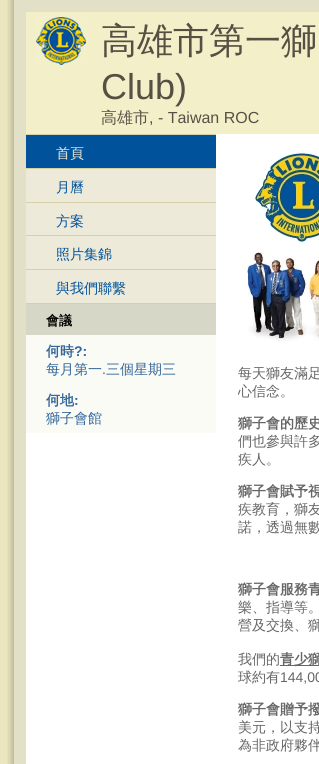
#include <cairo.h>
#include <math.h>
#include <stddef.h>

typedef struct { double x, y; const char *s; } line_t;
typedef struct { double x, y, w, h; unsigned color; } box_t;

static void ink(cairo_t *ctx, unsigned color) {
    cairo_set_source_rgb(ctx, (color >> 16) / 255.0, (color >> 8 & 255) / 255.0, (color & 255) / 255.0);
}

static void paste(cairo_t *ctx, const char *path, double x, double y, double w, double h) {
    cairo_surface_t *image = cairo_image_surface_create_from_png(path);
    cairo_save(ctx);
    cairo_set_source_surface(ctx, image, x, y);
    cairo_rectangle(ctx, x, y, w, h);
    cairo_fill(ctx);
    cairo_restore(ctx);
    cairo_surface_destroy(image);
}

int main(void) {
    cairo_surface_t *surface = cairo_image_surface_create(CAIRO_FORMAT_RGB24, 319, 764);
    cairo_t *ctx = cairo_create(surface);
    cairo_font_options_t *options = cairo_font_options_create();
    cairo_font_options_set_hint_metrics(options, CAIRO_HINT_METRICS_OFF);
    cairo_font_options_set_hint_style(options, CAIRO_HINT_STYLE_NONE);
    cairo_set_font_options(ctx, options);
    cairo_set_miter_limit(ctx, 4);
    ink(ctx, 0xEBE6C0);
    cairo_paint(ctx);
    paste(ctx, "media/1.png", 7, 0, 7, 764);
    ink(ctx, 0xE2E0C6);
    cairo_rectangle(ctx, 14, 0, 305, 764);
    cairo_fill(ctx);
    ink(ctx, 0xF3F0C9);
    cairo_rectangle(ctx, 26, 12, 293, 122);
    cairo_fill(ctx);
    paste(ctx, "media/2.png", 36, 17, 50, 48);
    cairo_select_font_face(ctx, "WenQuanYi Zen Hei Medium", CAIRO_FONT_SLANT_NORMAL, CAIRO_FONT_WEIGHT_NORMAL);
    cairo_set_font_size(ctx, 36);
    ink(ctx, 0x584F44);
    cairo_move_to(ctx, 101, 53);
    cairo_show_text(ctx, "高雄市第一獅");
    cairo_select_font_face(ctx, "Liberation Sans", CAIRO_FONT_SLANT_NORMAL, CAIRO_FONT_WEIGHT_NORMAL);
    cairo_move_to(ctx, 101, 99);
    cairo_show_text(ctx, "Club)");
    cairo_select_font_face(ctx, "WenQuanYi Zen Hei Medium", CAIRO_FONT_SLANT_NORMAL, CAIRO_FONT_WEIGHT_NORMAL);
    cairo_set_font_size(ctx, 16);
    cairo_move_to(ctx, 101, 123);
    cairo_show_text(ctx, "高雄市");
    cairo_select_font_face(ctx, "Liberation Sans", CAIRO_FONT_SLANT_NORMAL, CAIRO_FONT_WEIGHT_NORMAL);
    cairo_move_to(ctx, 149, 123);
    cairo_show_text(ctx, ", - Taiwan ROC");
    {
        static const box_t items[] = {
            {26, 134, 293, 630, 0xFFFFFF},
            {26, 134, 190, 1, 0xD5D0AA},
            {26, 168, 190, 1, 0xD5D0AA},
            {26, 135, 190, 33, 0x00529B},
        };
        for (size_t i = 0; i < sizeof items / sizeof *items; i++) {
            ink(ctx, items[i].color);
            cairo_rectangle(ctx, items[i].x, items[i].y, items[i].w, items[i].h);
            cairo_fill(ctx);
        }
    }
    cairo_select_font_face(ctx, "WenQuanYi Zen Hei Medium", CAIRO_FONT_SLANT_NORMAL, CAIRO_FONT_WEIGHT_NORMAL);
    cairo_set_font_size(ctx, 14);
    ink(ctx, 0xEDEADA);
    cairo_move_to(ctx, 56, 158);
    cairo_show_text(ctx, "首頁");
    ink(ctx, 0xD5D0AA);
    cairo_rectangle(ctx, 26, 202, 190, 1);
    cairo_fill(ctx);
    ink(ctx, 0xEDEADA);
    cairo_rectangle(ctx, 26, 169, 190, 33);
    cairo_fill(ctx);
    ink(ctx, 0x00529B);
    cairo_move_to(ctx, 56, 192);
    cairo_show_text(ctx, "月曆");
    ink(ctx, 0xD5D0AA);
    cairo_rectangle(ctx, 26, 235, 190, 1);
    cairo_fill(ctx);
    ink(ctx, 0xEDEADA);
    cairo_rectangle(ctx, 26, 203, 190, 32);
    cairo_fill(ctx);
    ink(ctx, 0x00529B);
    cairo_move_to(ctx, 56, 226);
    cairo_show_text(ctx, "方案");
    ink(ctx, 0xD5D0AA);
    cairo_rectangle(ctx, 26, 269, 190, 1);
    cairo_fill(ctx);
    ink(ctx, 0xEDEADA);
    cairo_rectangle(ctx, 26, 236, 190, 33);
    cairo_fill(ctx);
    ink(ctx, 0x00529B);
    cairo_move_to(ctx, 56, 259);
    cairo_show_text(ctx, "照片集錦");
    ink(ctx, 0xD5D0AA);
    cairo_rectangle(ctx, 26, 303, 190, 1);
    cairo_fill(ctx);
    ink(ctx, 0xEDEADA);
    cairo_rectangle(ctx, 26, 270, 190, 33);
    cairo_fill(ctx);
    ink(ctx, 0x00529B);
    cairo_move_to(ctx, 56, 293);
    cairo_show_text(ctx, "與我們聯繫");
    ink(ctx, 0xFBFBF6);
    cairo_rectangle(ctx, 26, 335, 190, 98);
    cairo_fill(ctx);
    ink(ctx, 0xD7D7C7);
    cairo_rectangle(ctx, 26, 304, 190, 31);
    cairo_fill(ctx);
    cairo_select_font_face(ctx, "WenQuanYi Zen Hei", CAIRO_FONT_SLANT_NORMAL, CAIRO_FONT_WEIGHT_BOLD);
    cairo_set_font_size(ctx, 13);
    ink(ctx, 0x000000);
    cairo_move_to(ctx, 46, 325);
    cairo_show_text(ctx, "會議");
    cairo_set_font_size(ctx, 14);
    ink(ctx, 0x336699);
    cairo_move_to(ctx, 46, 356);
    cairo_show_text(ctx, "何時");
    cairo_select_font_face(ctx, "Liberation Sans", CAIRO_FONT_SLANT_NORMAL, CAIRO_FONT_WEIGHT_BOLD);
    cairo_move_to(ctx, 74, 356);
    cairo_show_text(ctx, "?:");
    cairo_select_font_face(ctx, "WenQuanYi Zen Hei Medium", CAIRO_FONT_SLANT_NORMAL, CAIRO_FONT_WEIGHT_NORMAL);
    cairo_move_to(ctx, 46, 374);
    cairo_show_text(ctx, "每月第一");
    cairo_select_font_face(ctx, "Liberation Sans", CAIRO_FONT_SLANT_NORMAL, CAIRO_FONT_WEIGHT_NORMAL);
    cairo_move_to(ctx, 102, 374);
    cairo_show_text(ctx, ".");
    cairo_select_font_face(ctx, "WenQuanYi Zen Hei Medium", CAIRO_FONT_SLANT_NORMAL, CAIRO_FONT_WEIGHT_NORMAL);
    cairo_move_to(ctx, 106, 374);
    cairo_show_text(ctx, "三個星期三");
    cairo_select_font_face(ctx, "WenQuanYi Zen Hei", CAIRO_FONT_SLANT_NORMAL, CAIRO_FONT_WEIGHT_BOLD);
    cairo_move_to(ctx, 46, 405);
    cairo_show_text(ctx, "何地");
    cairo_select_font_face(ctx, "Liberation Sans", CAIRO_FONT_SLANT_NORMAL, CAIRO_FONT_WEIGHT_BOLD);
    cairo_move_to(ctx, 74, 405);
    cairo_show_text(ctx, ":");
    cairo_select_font_face(ctx, "WenQuanYi Zen Hei Medium", CAIRO_FONT_SLANT_NORMAL, CAIRO_FONT_WEIGHT_NORMAL);
    cairo_move_to(ctx, 46, 423);
    cairo_show_text(ctx, "獅子會館");
    paste(ctx, "media/3.png", 247, 152, 72, 190);
    ink(ctx, 0x666666);
    cairo_move_to(ctx, 238, 378);
    cairo_show_text(ctx, "每天獅友滿足");
    cairo_move_to(ctx, 238, 396);
    cairo_show_text(ctx, "心信念。");
    cairo_select_font_face(ctx, "WenQuanYi Zen Hei", CAIRO_FONT_SLANT_NORMAL, CAIRO_FONT_WEIGHT_BOLD);
    cairo_move_to(ctx, 238, 428);
    cairo_show_text(ctx, "獅子會的歷史");
    cairo_select_font_face(ctx, "WenQuanYi Zen Hei Medium", CAIRO_FONT_SLANT_NORMAL, CAIRO_FONT_WEIGHT_NORMAL);
    cairo_move_to(ctx, 238, 446);
    cairo_show_text(ctx, "們也參與許多");
    cairo_move_to(ctx, 238, 464);
    cairo_show_text(ctx, "疾人。");
    cairo_select_font_face(ctx, "WenQuanYi Zen Hei", CAIRO_FONT_SLANT_NORMAL, CAIRO_FONT_WEIGHT_BOLD);
    cairo_move_to(ctx, 238, 496);
    cairo_show_text(ctx, "獅子會賦予視");
    cairo_select_font_face(ctx, "WenQuanYi Zen Hei Medium", CAIRO_FONT_SLANT_NORMAL, CAIRO_FONT_WEIGHT_NORMAL);
    cairo_move_to(ctx, 238, 514);
    cairo_show_text(ctx, "疾教育，獅友");
    cairo_move_to(ctx, 238, 532);
    cairo_show_text(ctx, "諾，透過無數");
    cairo_select_font_face(ctx, "WenQuanYi Zen Hei", CAIRO_FONT_SLANT_NORMAL, CAIRO_FONT_WEIGHT_BOLD);
    cairo_move_to(ctx, 238, 594);
    cairo_show_text(ctx, "獅子會服務青");
    cairo_select_font_face(ctx, "WenQuanYi Zen Hei Medium", CAIRO_FONT_SLANT_NORMAL, CAIRO_FONT_WEIGHT_NORMAL);
    {
        static const line_t items[] = {
            {238, 612, "樂、指導等。"},
            {238, 630, "營及交換、獅"},
            {238, 664, "我們的"},
        };
        for (size_t i = 0; i < sizeof items / sizeof *items; i++) {
            cairo_move_to(ctx, items[i].x, items[i].y);
            cairo_show_text(ctx, items[i].s);
        }
    }
    cairo_rectangle(ctx, 280, 665, 39, 1);
    cairo_fill(ctx);
    cairo_select_font_face(ctx, "WenQuanYi Zen Hei", CAIRO_FONT_SLANT_NORMAL, CAIRO_FONT_WEIGHT_BOLD);
    cairo_move_to(ctx, 280, 664);
    cairo_show_text(ctx, "青少獅");
    cairo_select_font_face(ctx, "WenQuanYi Zen Hei Medium", CAIRO_FONT_SLANT_NORMAL, CAIRO_FONT_WEIGHT_NORMAL);
    cairo_move_to(ctx, 238, 682);
    cairo_show_text(ctx, "球約有");
    cairo_select_font_face(ctx, "Liberation Sans", CAIRO_FONT_SLANT_NORMAL, CAIRO_FONT_WEIGHT_NORMAL);
    cairo_move_to(ctx, 280, 682);
    cairo_show_text(ctx, "144,00");
    cairo_select_font_face(ctx, "WenQuanYi Zen Hei", CAIRO_FONT_SLANT_NORMAL, CAIRO_FONT_WEIGHT_BOLD);
    cairo_move_to(ctx, 238, 714);
    cairo_show_text(ctx, "獅子會贈予撥");
    cairo_select_font_face(ctx, "WenQuanYi Zen Hei Medium", CAIRO_FONT_SLANT_NORMAL, CAIRO_FONT_WEIGHT_NORMAL);
    cairo_move_to(ctx, 238, 732);
    cairo_show_text(ctx, "美元，以支持");
    cairo_move_to(ctx, 238, 750);
    cairo_show_text(ctx, "為非政府夥伴");
    cairo_surface_write_to_png(surface, "image.png");
    cairo_font_options_destroy(options);
    cairo_destroy(ctx);
    cairo_surface_destroy(surface);
    return 0;
}
